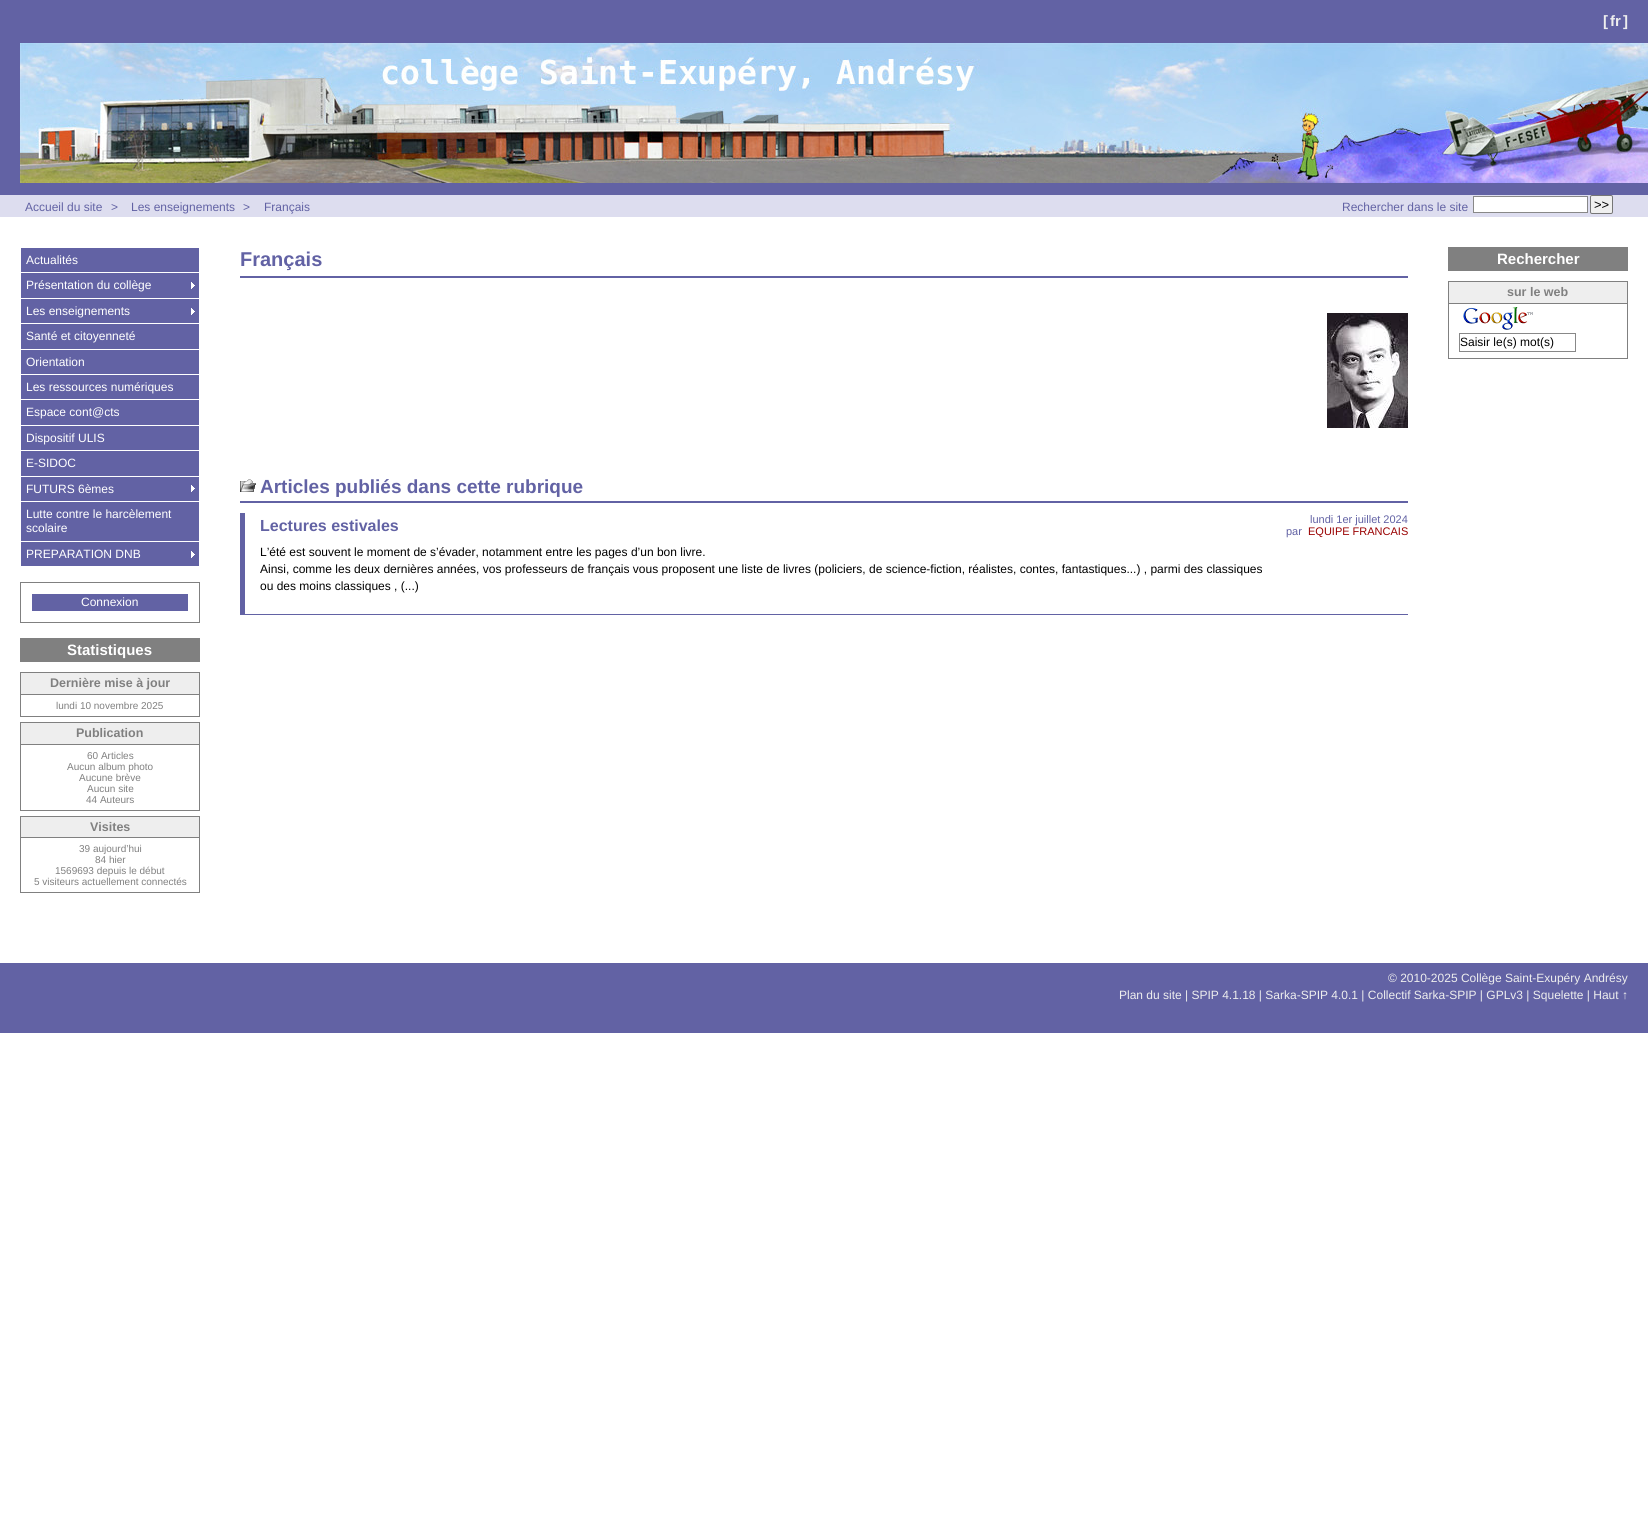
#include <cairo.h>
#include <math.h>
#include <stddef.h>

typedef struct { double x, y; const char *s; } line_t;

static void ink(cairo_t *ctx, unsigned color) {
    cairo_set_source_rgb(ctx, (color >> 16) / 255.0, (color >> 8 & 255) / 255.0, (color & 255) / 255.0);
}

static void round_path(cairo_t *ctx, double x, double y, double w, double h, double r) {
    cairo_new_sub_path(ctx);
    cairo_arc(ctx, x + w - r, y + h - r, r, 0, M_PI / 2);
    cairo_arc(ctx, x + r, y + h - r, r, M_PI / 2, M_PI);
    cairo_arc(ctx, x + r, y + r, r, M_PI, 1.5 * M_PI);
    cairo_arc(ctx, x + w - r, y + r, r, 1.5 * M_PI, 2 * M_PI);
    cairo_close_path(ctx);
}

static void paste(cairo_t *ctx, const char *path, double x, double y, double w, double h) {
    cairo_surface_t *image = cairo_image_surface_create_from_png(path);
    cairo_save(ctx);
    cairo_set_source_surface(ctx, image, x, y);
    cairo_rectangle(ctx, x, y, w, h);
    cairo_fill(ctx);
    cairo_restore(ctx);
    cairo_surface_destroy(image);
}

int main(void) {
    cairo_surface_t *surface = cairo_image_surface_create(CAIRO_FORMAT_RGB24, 1648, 1530);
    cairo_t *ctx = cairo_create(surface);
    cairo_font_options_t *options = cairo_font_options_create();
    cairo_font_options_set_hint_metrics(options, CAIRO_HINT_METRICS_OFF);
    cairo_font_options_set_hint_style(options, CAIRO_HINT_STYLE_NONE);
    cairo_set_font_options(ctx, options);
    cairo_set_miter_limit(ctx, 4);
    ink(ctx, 0xFFFFFF);
    cairo_paint(ctx);
    ink(ctx, 0x6262A4);
    cairo_rectangle(ctx, 0, 0, 1648, 195);
    cairo_fill(ctx);
    cairo_select_font_face(ctx, "Liberation Sans", CAIRO_FONT_SLANT_NORMAL, CAIRO_FONT_WEIGHT_BOLD);
    cairo_set_font_size(ctx, 15);
    ink(ctx, 0xEEEEEE);
    {
        static const line_t items[] = {
            {1603, 26, "["},
            {1610, 26, "fr"},
            {1623, 26, "]"},
        };
        for (size_t i = 0; i < sizeof items / sizeof *items; i++) {
            cairo_move_to(ctx, items[i].x, items[i].y);
            cairo_show_text(ctx, items[i].s);
        }
    }
    paste(ctx, "media/1.png", 20, 43, 1628, 140);
    ink(ctx, 0xDDDDEF);
    cairo_rectangle(ctx, 0, 195, 1648, 22);
    cairo_fill(ctx);
    cairo_select_font_face(ctx, "Liberation Sans", CAIRO_FONT_SLANT_NORMAL, CAIRO_FONT_WEIGHT_NORMAL);
    cairo_set_font_size(ctx, 12);
    ink(ctx, 0x6262A4);
    {
        static const line_t items[] = {
            {25, 211, "Accueil du site"},
            {111, 211, ">"},
            {131, 211, "Les enseignements"},
            {243, 211, ">"},
            {264, 211, "Français"},
            {1342, 211, "Rechercher dans le site"},
        };
        for (size_t i = 0; i < sizeof items / sizeof *items; i++) {
            cairo_move_to(ctx, items[i].x, items[i].y);
            cairo_show_text(ctx, items[i].s);
        }
    }
    ink(ctx, 0xFFFFFF);
    cairo_rectangle(ctx, 1473.5, 196.5, 114, 16);
    cairo_fill_preserve(ctx);
    ink(ctx, 0x888888);
    cairo_set_line_width(ctx, 1);
    cairo_stroke(ctx);
    ink(ctx, 0xEFEFEF);
    round_path(ctx, 1590.5, 195.5, 22, 18, 1.5);
    cairo_fill_preserve(ctx);
    ink(ctx, 0x767676);
    cairo_stroke(ctx);
    cairo_set_font_size(ctx, 13);
    ink(ctx, 0x000000);
    cairo_move_to(ctx, 1594, 209);
    cairo_show_text(ctx, ">>");
    ink(ctx, 0x6262A4);
    cairo_rectangle(ctx, 21, 248, 178, 293);
    cairo_fill(ctx);
    ink(ctx, 0xFFFFFF);
    cairo_rectangle(ctx, 21, 272, 178, 1);
    cairo_fill(ctx);
    cairo_set_font_size(ctx, 12);
    cairo_move_to(ctx, 26, 264);
    cairo_show_text(ctx, "Actualités");
    cairo_rectangle(ctx, 21, 298, 178, 1);
    cairo_fill(ctx);
    paste(ctx, "media/2.png", 191, 282, 4, 7);
    cairo_move_to(ctx, 26, 289);
    cairo_show_text(ctx, "Présentation du collège");
    cairo_rectangle(ctx, 21, 323, 178, 1);
    cairo_fill(ctx);
    paste(ctx, "media/2.png", 191, 308, 4, 7);
    cairo_move_to(ctx, 26, 315);
    cairo_show_text(ctx, "Les enseignements");
    cairo_rectangle(ctx, 21, 349, 178, 1);
    cairo_fill(ctx);
    cairo_move_to(ctx, 26, 340);
    cairo_show_text(ctx, "Santé et citoyenneté");
    cairo_rectangle(ctx, 21, 374, 178, 1);
    cairo_fill(ctx);
    cairo_move_to(ctx, 26, 366);
    cairo_show_text(ctx, "Orientation");
    cairo_rectangle(ctx, 21, 399, 178, 1);
    cairo_fill(ctx);
    cairo_move_to(ctx, 26, 391);
    cairo_show_text(ctx, "Les ressources numériques");
    cairo_rectangle(ctx, 21, 425, 178, 1);
    cairo_fill(ctx);
    cairo_move_to(ctx, 26, 416);
    cairo_show_text(ctx, "Espace cont@cts");
    cairo_rectangle(ctx, 21, 450, 178, 1);
    cairo_fill(ctx);
    cairo_move_to(ctx, 26, 442);
    cairo_show_text(ctx, "Dispositif ULIS");
    cairo_rectangle(ctx, 21, 476, 178, 1);
    cairo_fill(ctx);
    cairo_move_to(ctx, 26, 467);
    cairo_show_text(ctx, "E-SIDOC");
    cairo_rectangle(ctx, 21, 501, 178, 1);
    cairo_fill(ctx);
    paste(ctx, "media/2.png", 191, 485, 4, 7);
    {
        static const line_t items[] = {
            {26, 493, "FUTURS 6èmes"},
            {26, 518, "Lutte contre le harcèlement"},
            {26, 532, "scolaire"},
        };
        for (size_t i = 0; i < sizeof items / sizeof *items; i++) {
            cairo_move_to(ctx, items[i].x, items[i].y);
            cairo_show_text(ctx, items[i].s);
        }
    }
    ink(ctx, 0x6262A4);
    cairo_rectangle(ctx, 21, 542, 178, 24);
    cairo_fill(ctx);
    paste(ctx, "media/2.png", 191, 551, 4, 7);
    ink(ctx, 0xFFFFFF);
    cairo_move_to(ctx, 26, 558);
    cairo_show_text(ctx, "PREPARATION DNB");
    cairo_rectangle(ctx, 20.5, 582.5, 179, 40);
    ink(ctx, 0x808080);
    cairo_stroke(ctx);
    ink(ctx, 0x6262A4);
    cairo_rectangle(ctx, 32, 594, 156, 17);
    cairo_fill(ctx);
    ink(ctx, 0xFFFFFF);
    cairo_move_to(ctx, 81, 606);
    cairo_show_text(ctx, "Connexion");
    ink(ctx, 0x808080);
    cairo_rectangle(ctx, 20, 638, 180, 24);
    cairo_fill(ctx);
    cairo_select_font_face(ctx, "Liberation Sans", CAIRO_FONT_SLANT_NORMAL, CAIRO_FONT_WEIGHT_BOLD);
    cairo_set_font_size(ctx, 15);
    ink(ctx, 0xFFFFFF);
    cairo_move_to(ctx, 67, 655);
    cairo_show_text(ctx, "Statistiques");
    cairo_rectangle(ctx, 20.5, 672.5, 179, 44);
    ink(ctx, 0x808080);
    cairo_stroke(ctx);
    ink(ctx, 0xEEEEEE);
    cairo_rectangle(ctx, 21, 673, 178, 21);
    cairo_fill(ctx);
    ink(ctx, 0x808080);
    cairo_rectangle(ctx, 21, 694, 178, 1);
    cairo_fill(ctx);
    cairo_set_font_size(ctx, 12.5);
    cairo_move_to(ctx, 50, 687);
    cairo_show_text(ctx, "Dernière mise à jour");
    cairo_select_font_face(ctx, "Liberation Sans", CAIRO_FONT_SLANT_NORMAL, CAIRO_FONT_WEIGHT_NORMAL);
    cairo_set_font_size(ctx, 10);
    cairo_move_to(ctx, 56, 709);
    cairo_show_text(ctx, "lundi 10 novembre 2025");
    cairo_rectangle(ctx, 20.5, 722.5, 179, 88);
    cairo_stroke(ctx);
    ink(ctx, 0xEEEEEE);
    cairo_rectangle(ctx, 21, 723, 178, 21);
    cairo_fill(ctx);
    ink(ctx, 0x808080);
    cairo_rectangle(ctx, 21, 744, 178, 1);
    cairo_fill(ctx);
    cairo_select_font_face(ctx, "Liberation Sans", CAIRO_FONT_SLANT_NORMAL, CAIRO_FONT_WEIGHT_BOLD);
    cairo_set_font_size(ctx, 12.5);
    cairo_move_to(ctx, 76, 737);
    cairo_show_text(ctx, "Publication");
    cairo_select_font_face(ctx, "Liberation Sans", CAIRO_FONT_SLANT_NORMAL, CAIRO_FONT_WEIGHT_NORMAL);
    cairo_set_font_size(ctx, 10);
    {
        static const line_t items[] = {
            {87, 759, "60 Articles"},
            {67, 770, "Aucun album photo"},
            {79, 781, "Aucune brève"},
            {87, 792, "Aucun site"},
            {86, 803, "44 Auteurs"},
        };
        for (size_t i = 0; i < sizeof items / sizeof *items; i++) {
            cairo_move_to(ctx, items[i].x, items[i].y);
            cairo_show_text(ctx, items[i].s);
        }
    }
    cairo_rectangle(ctx, 20.5, 816.5, 179, 76);
    cairo_stroke(ctx);
    ink(ctx, 0xEEEEEE);
    cairo_rectangle(ctx, 21, 817, 178, 20);
    cairo_fill(ctx);
    ink(ctx, 0x808080);
    cairo_rectangle(ctx, 21, 837, 178, 1);
    cairo_fill(ctx);
    cairo_select_font_face(ctx, "Liberation Sans", CAIRO_FONT_SLANT_NORMAL, CAIRO_FONT_WEIGHT_BOLD);
    cairo_set_font_size(ctx, 12.5);
    cairo_move_to(ctx, 90, 831);
    cairo_show_text(ctx, "Visites");
    cairo_select_font_face(ctx, "Liberation Sans", CAIRO_FONT_SLANT_NORMAL, CAIRO_FONT_WEIGHT_NORMAL);
    cairo_set_font_size(ctx, 10);
    {
        static const line_t items[] = {
            {79, 852, "39 aujourd’hui"},
            {95, 863, "84 hier"},
            {55, 874, "1569693 depuis le début"},
            {34, 885, "5 visiteurs actuellement connectés"},
        };
        for (size_t i = 0; i < sizeof items / sizeof *items; i++) {
            cairo_move_to(ctx, items[i].x, items[i].y);
            cairo_show_text(ctx, items[i].s);
        }
    }
    ink(ctx, 0x6262A4);
    cairo_rectangle(ctx, 240, 276, 1168, 2);
    cairo_fill(ctx);
    cairo_select_font_face(ctx, "Liberation Sans", CAIRO_FONT_SLANT_NORMAL, CAIRO_FONT_WEIGHT_BOLD);
    cairo_set_font_size(ctx, 20);
    cairo_move_to(ctx, 240, 266);
    cairo_show_text(ctx, "Français");
    paste(ctx, "media/3.png", 1327, 313, 81, 115);
    paste(ctx, "media/4.png", 240, 479, 16, 13);
    cairo_rectangle(ctx, 240, 501, 1168, 2);
    cairo_fill(ctx);
    cairo_set_font_size(ctx, 19);
    cairo_move_to(ctx, 260, 493);
    cairo_show_text(ctx, "Articles publiés dans cette rubrique");
    cairo_rectangle(ctx, 240, 614, 1168, 1);
    cairo_fill(ctx);
    cairo_rectangle(ctx, 240, 513, 5, 102);
    cairo_fill(ctx);
    cairo_set_font_size(ctx, 16);
    cairo_move_to(ctx, 260, 531);
    cairo_show_text(ctx, "Lectures estivales");
    cairo_select_font_face(ctx, "Liberation Sans", CAIRO_FONT_SLANT_NORMAL, CAIRO_FONT_WEIGHT_NORMAL);
    cairo_set_font_size(ctx, 11);
    cairo_move_to(ctx, 1310, 523);
    cairo_show_text(ctx, "lundi 1er juillet 2024");
    cairo_move_to(ctx, 1286, 535);
    cairo_show_text(ctx, "par");
    ink(ctx, 0x990000);
    cairo_move_to(ctx, 1308, 535);
    cairo_show_text(ctx, "EQUIPE FRANCAIS");
    cairo_set_font_size(ctx, 12);
    ink(ctx, 0x000000);
    {
        static const line_t items[] = {
            {260, 556, "L’été est souvent le moment de s’évader, notamment entre les pages d’un bon livre."},
            {260, 573, "Ainsi, comme les deux dernières années, vos professeurs de français vous proposent une liste de livres (policiers, de science-fiction, réalistes, contes, fantastiques...) , parmi des classiques"},
            {260, 590, "ou des moins classiques , (...)"},
        };
        for (size_t i = 0; i < sizeof items / sizeof *items; i++) {
            cairo_move_to(ctx, items[i].x, items[i].y);
            cairo_show_text(ctx, items[i].s);
        }
    }
    ink(ctx, 0x808080);
    cairo_rectangle(ctx, 1448, 247, 180, 24);
    cairo_fill(ctx);
    cairo_select_font_face(ctx, "Liberation Sans", CAIRO_FONT_SLANT_NORMAL, CAIRO_FONT_WEIGHT_BOLD);
    cairo_set_font_size(ctx, 15);
    ink(ctx, 0xFFFFFF);
    cairo_move_to(ctx, 1497, 264);
    cairo_show_text(ctx, "Rechercher");
    cairo_rectangle(ctx, 1448.5, 281.5, 179, 77);
    ink(ctx, 0x808080);
    cairo_stroke(ctx);
    ink(ctx, 0xEEEEEE);
    cairo_rectangle(ctx, 1449, 282, 178, 21);
    cairo_fill(ctx);
    ink(ctx, 0x808080);
    cairo_rectangle(ctx, 1449, 303, 178, 1);
    cairo_fill(ctx);
    cairo_set_font_size(ctx, 12.5);
    cairo_move_to(ctx, 1507, 296);
    cairo_show_text(ctx, "sur le web");
    paste(ctx, "media/5.png", 1463, 307, 70, 23);
    cairo_rectangle(ctx, 1459.5, 333.5, 116, 18);
    ink(ctx, 0x888888);
    cairo_stroke(ctx);
    cairo_select_font_face(ctx, "Liberation Sans", CAIRO_FONT_SLANT_NORMAL, CAIRO_FONT_WEIGHT_NORMAL);
    cairo_set_font_size(ctx, 12);
    ink(ctx, 0x000000);
    cairo_move_to(ctx, 1460, 346);
    cairo_show_text(ctx, "Saisir le(s) mot(s)");
    ink(ctx, 0x6262A4);
    cairo_rectangle(ctx, 0, 963, 1648, 70);
    cairo_fill(ctx);
    ink(ctx, 0xEEEEEE);
    cairo_move_to(ctx, 1388, 982);
    cairo_show_text(ctx, "© 2010-2025 Collège Saint-Exupéry Andrésy");
    cairo_move_to(ctx, 1119, 999);
    cairo_show_text(ctx, "Plan du site | SPIP 4.1.18 | Sarka-SPIP 4.0.1 | Collectif Sarka-SPIP | GPLv3 | Squelette | Haut ↑");
    cairo_surface_write_to_png(surface, "image.png");
    cairo_font_options_destroy(options);
    cairo_destroy(ctx);
    cairo_surface_destroy(surface);
    return 0;
}
